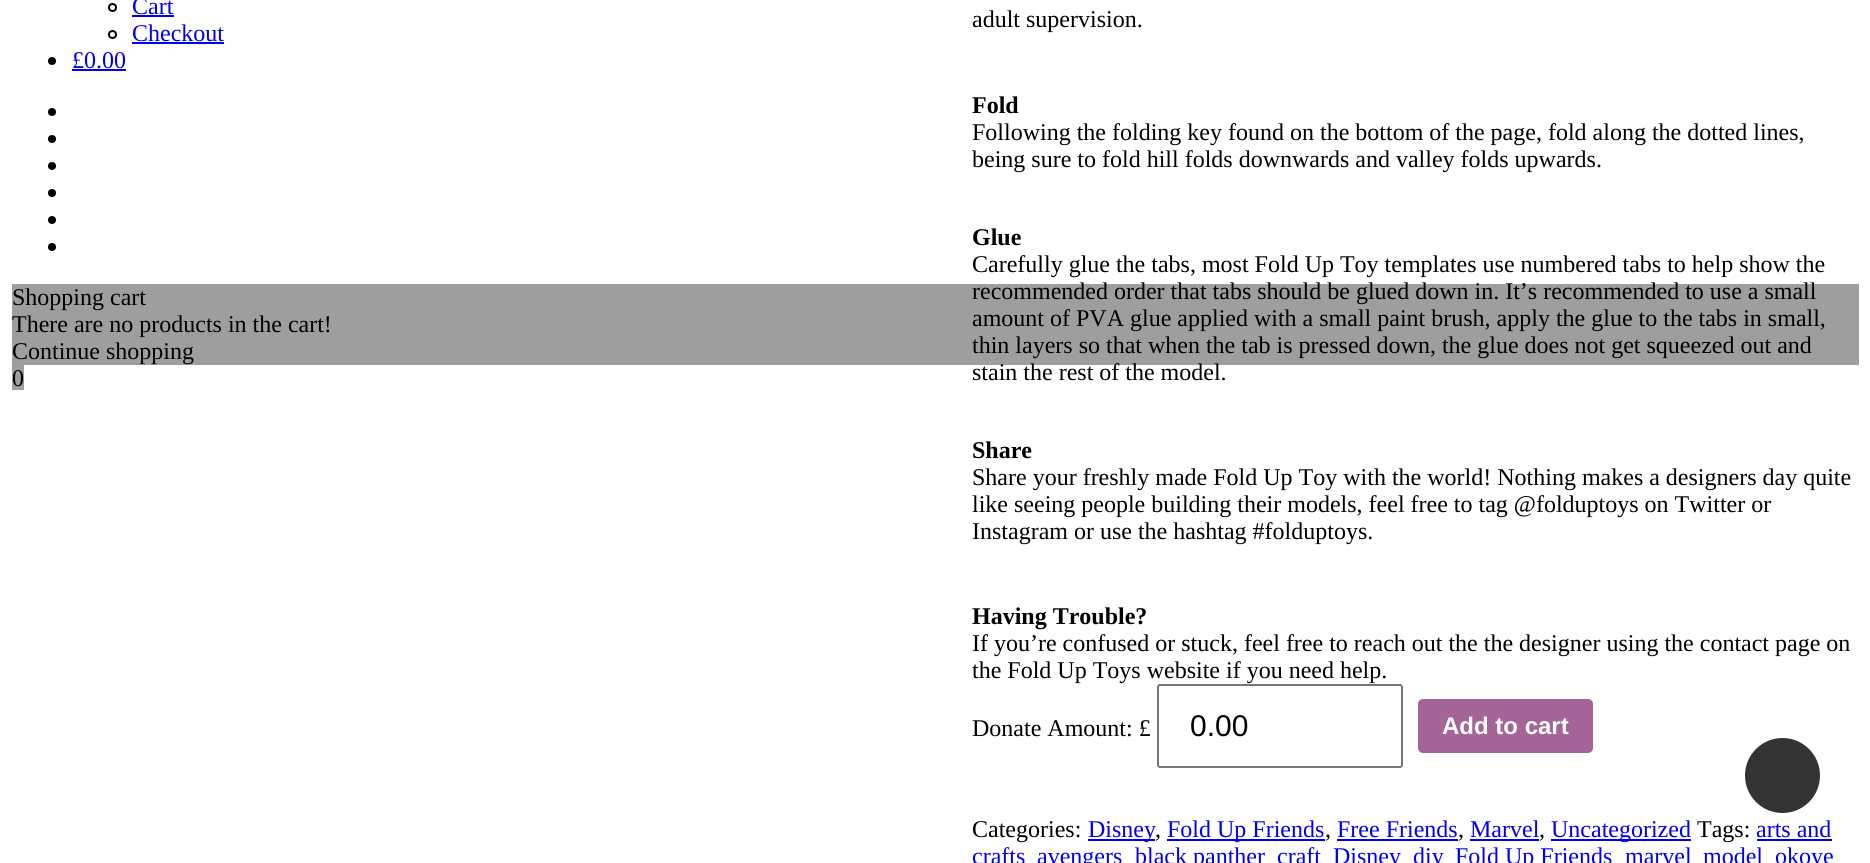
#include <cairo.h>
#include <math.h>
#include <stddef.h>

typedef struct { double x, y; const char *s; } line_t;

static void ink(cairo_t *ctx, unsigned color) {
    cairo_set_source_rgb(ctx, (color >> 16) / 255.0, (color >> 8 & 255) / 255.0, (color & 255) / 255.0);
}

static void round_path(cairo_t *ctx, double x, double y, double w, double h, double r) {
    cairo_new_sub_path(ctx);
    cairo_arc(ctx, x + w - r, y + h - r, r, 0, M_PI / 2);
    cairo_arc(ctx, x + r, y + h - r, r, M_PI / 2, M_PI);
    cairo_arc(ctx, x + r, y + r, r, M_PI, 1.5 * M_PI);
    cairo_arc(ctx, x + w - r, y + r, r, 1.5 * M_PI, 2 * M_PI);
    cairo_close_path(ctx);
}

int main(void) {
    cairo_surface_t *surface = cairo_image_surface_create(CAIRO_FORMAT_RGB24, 1870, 863);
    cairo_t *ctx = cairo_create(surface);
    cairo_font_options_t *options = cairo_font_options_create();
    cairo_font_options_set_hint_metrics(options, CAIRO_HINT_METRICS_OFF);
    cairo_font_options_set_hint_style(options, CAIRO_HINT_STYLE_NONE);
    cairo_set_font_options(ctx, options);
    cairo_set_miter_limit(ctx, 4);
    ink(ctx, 0xFFFFFF);
    cairo_paint(ctx);
    cairo_arc(ctx, 112.5, 7.5, 3.5, 0, 2 * M_PI);
    ink(ctx, 0x000000);
    cairo_stroke(ctx);
    cairo_select_font_face(ctx, "Liberation Serif", CAIRO_FONT_SLANT_NORMAL, CAIRO_FONT_WEIGHT_NORMAL);
    cairo_set_font_size(ctx, 24);
    ink(ctx, 0x0000EE);
    cairo_move_to(ctx, 132, 14);
    cairo_show_text(ctx, "Cart");
    cairo_rectangle(ctx, 132, 15, 42, 2);
    cairo_fill(ctx);
    cairo_arc(ctx, 112.5, 34.5, 3.5, 0, 2 * M_PI);
    ink(ctx, 0x000000);
    cairo_stroke(ctx);
    ink(ctx, 0x0000EE);
    cairo_move_to(ctx, 132, 41);
    cairo_show_text(ctx, "Checkout");
    cairo_rectangle(ctx, 132, 42, 92, 2);
    cairo_fill(ctx);
    ink(ctx, 0x000000);
    cairo_arc(ctx, 52, 61, 4, 0, 2 * M_PI);
    cairo_fill(ctx);
    ink(ctx, 0x0000EE);
    cairo_move_to(ctx, 72, 68);
    cairo_show_text(ctx, "£0.00");
    cairo_rectangle(ctx, 72, 69, 54, 2);
    cairo_fill(ctx);
    ink(ctx, 0x000000);
    cairo_arc(ctx, 52, 112, 4, 0, 2 * M_PI);
    cairo_fill(ctx);
    cairo_arc(ctx, 52, 139, 4, 0, 2 * M_PI);
    cairo_fill(ctx);
    cairo_arc(ctx, 52, 166, 4, 0, 2 * M_PI);
    cairo_fill(ctx);
    cairo_arc(ctx, 52, 193, 4, 0, 2 * M_PI);
    cairo_fill(ctx);
    cairo_arc(ctx, 52, 220, 4, 0, 2 * M_PI);
    cairo_fill(ctx);
    cairo_arc(ctx, 52, 247, 4, 0, 2 * M_PI);
    cairo_fill(ctx);
    cairo_move_to(ctx, 972, 27);
    cairo_show_text(ctx, "adult supervision.");
    cairo_select_font_face(ctx, "Liberation Serif", CAIRO_FONT_SLANT_NORMAL, CAIRO_FONT_WEIGHT_BOLD);
    cairo_move_to(ctx, 972, 113);
    cairo_show_text(ctx, "Fold");
    cairo_select_font_face(ctx, "Liberation Serif", CAIRO_FONT_SLANT_NORMAL, CAIRO_FONT_WEIGHT_NORMAL);
    cairo_move_to(ctx, 972, 140);
    cairo_show_text(ctx, "Following the folding key found on the bottom of the page, fold along the dotted lines,");
    cairo_move_to(ctx, 972, 167);
    cairo_show_text(ctx, "being sure to fold hill folds downwards and valley folds upwards.");
    cairo_select_font_face(ctx, "Liberation Serif", CAIRO_FONT_SLANT_NORMAL, CAIRO_FONT_WEIGHT_BOLD);
    cairo_move_to(ctx, 972, 245);
    cairo_show_text(ctx, "Glue");
    cairo_select_font_face(ctx, "Liberation Serif", CAIRO_FONT_SLANT_NORMAL, CAIRO_FONT_WEIGHT_NORMAL);
    cairo_move_to(ctx, 972, 272);
    cairo_show_text(ctx, "Carefully glue the tabs, most Fold Up Toy templates use numbered tabs to help show the");
    ink(ctx, 0x9E9E9E);
    cairo_rectangle(ctx, 12, 284, 1847, 81);
    cairo_fill(ctx);
    ink(ctx, 0x000000);
    {
        static const line_t items[] = {
            {972, 299, "recommended order that tabs should be glued down in. It’s recommended to use a small"},
            {972, 326, "amount of PVA glue applied with a small paint brush, apply the glue to the tabs in small,"},
            {972, 353, "thin layers so that when the tab is pressed down, the glue does not get squeezed out and"},
            {972, 380, "stain the rest of the model."},
        };
        for (size_t i = 0; i < sizeof items / sizeof *items; i++) {
            cairo_move_to(ctx, items[i].x, items[i].y);
            cairo_show_text(ctx, items[i].s);
        }
    }
    cairo_select_font_face(ctx, "Liberation Serif", CAIRO_FONT_SLANT_NORMAL, CAIRO_FONT_WEIGHT_BOLD);
    cairo_move_to(ctx, 972, 458);
    cairo_show_text(ctx, "Share");
    cairo_select_font_face(ctx, "Liberation Serif", CAIRO_FONT_SLANT_NORMAL, CAIRO_FONT_WEIGHT_NORMAL);
    {
        static const line_t items[] = {
            {972, 485, "Share your freshly made Fold Up Toy with the world! Nothing makes a designers day quite"},
            {972, 512, "like seeing people building their models, feel free to tag @folduptoys on Twitter or"},
            {972, 539, "Instagram or use the hashtag #folduptoys."},
        };
        for (size_t i = 0; i < sizeof items / sizeof *items; i++) {
            cairo_move_to(ctx, items[i].x, items[i].y);
            cairo_show_text(ctx, items[i].s);
        }
    }
    cairo_select_font_face(ctx, "Liberation Serif", CAIRO_FONT_SLANT_NORMAL, CAIRO_FONT_WEIGHT_BOLD);
    cairo_move_to(ctx, 972, 624);
    cairo_show_text(ctx, "Having Trouble?");
    cairo_select_font_face(ctx, "Liberation Serif", CAIRO_FONT_SLANT_NORMAL, CAIRO_FONT_WEIGHT_NORMAL);
    {
        static const line_t items[] = {
            {972, 651, "If you’re confused or stuck, feel free to reach out the the designer using the contact page on"},
            {972, 678, "the Fold Up Toys website if you need help."},
            {972, 736, "Donate Amount: £"},
        };
        for (size_t i = 0; i < sizeof items / sizeof *items; i++) {
            cairo_move_to(ctx, items[i].x, items[i].y);
            cairo_show_text(ctx, items[i].s);
        }
    }
    round_path(ctx, 1158, 685, 244, 82, 2);
    ink(ctx, 0x767676);
    cairo_stroke(ctx);
    cairo_select_font_face(ctx, "Liberation Sans", CAIRO_FONT_SLANT_NORMAL, CAIRO_FONT_WEIGHT_NORMAL);
    cairo_set_font_size(ctx, 30);
    ink(ctx, 0x000000);
    cairo_move_to(ctx, 1190, 736);
    cairo_show_text(ctx, "0.00");
    ink(ctx, 0xA46497);
    round_path(ctx, 1418, 699, 175, 54, 5);
    cairo_fill(ctx);
    cairo_select_font_face(ctx, "Liberation Sans", CAIRO_FONT_SLANT_NORMAL, CAIRO_FONT_WEIGHT_BOLD);
    cairo_set_font_size(ctx, 24);
    ink(ctx, 0xFFFFFF);
    cairo_move_to(ctx, 1442, 734);
    cairo_show_text(ctx, "Add to cart");
    cairo_select_font_face(ctx, "Liberation Serif", CAIRO_FONT_SLANT_NORMAL, CAIRO_FONT_WEIGHT_NORMAL);
    ink(ctx, 0x000000);
    cairo_move_to(ctx, 972, 837);
    cairo_show_text(ctx, "Categories:");
    ink(ctx, 0x0000EE);
    cairo_rectangle(ctx, 1088, 839, 67, 2);
    cairo_fill(ctx);
    cairo_move_to(ctx, 1088, 837);
    cairo_show_text(ctx, "Disney");
    ink(ctx, 0x000000);
    cairo_move_to(ctx, 1155, 837);
    cairo_show_text(ctx, ",");
    ink(ctx, 0x0000EE);
    cairo_rectangle(ctx, 1167, 839, 158, 2);
    cairo_fill(ctx);
    cairo_move_to(ctx, 1167, 837);
    cairo_show_text(ctx, "Fold Up Friends");
    ink(ctx, 0x000000);
    cairo_move_to(ctx, 1325, 837);
    cairo_show_text(ctx, ",");
    ink(ctx, 0x0000EE);
    cairo_move_to(ctx, 1337, 837);
    cairo_show_text(ctx, "Free Friends");
    ink(ctx, 0x000000);
    cairo_move_to(ctx, 1458, 837);
    cairo_show_text(ctx, ",");
    ink(ctx, 0x0000EE);
    cairo_rectangle(ctx, 1337, 839, 121, 2);
    cairo_fill(ctx);
    cairo_move_to(ctx, 1470, 837);
    cairo_show_text(ctx, "Marvel");
    ink(ctx, 0x000000);
    cairo_move_to(ctx, 1539, 837);
    cairo_show_text(ctx, ",");
    ink(ctx, 0x0000EE);
    cairo_rectangle(ctx, 1470, 839, 69, 2);
    cairo_fill(ctx);
    cairo_rectangle(ctx, 1551, 839, 140, 2);
    cairo_fill(ctx);
    cairo_move_to(ctx, 1551, 837);
    cairo_show_text(ctx, "Uncategorized");
    ink(ctx, 0x000000);
    cairo_move_to(ctx, 1697, 837);
    cairo_show_text(ctx, "Tags:");
    ink(ctx, 0x0000EE);
    cairo_move_to(ctx, 1756, 837);
    cairo_show_text(ctx, "arts and");
    cairo_rectangle(ctx, 1757, 839, 75, 2);
    cairo_fill(ctx);
    {
        static const line_t items[] = {
            {972, 864, "crafts"},
            {1037, 864, "avengers"},
            {1135, 864, "black panther"},
            {1277, 864, "craft"},
            {1333, 864, "Disney"},
            {1413, 864, "diy"},
            {1455, 864, "Fold Up Friends"},
            {1625, 864, "marvel"},
            {1703, 864, "model"},
            {1775, 864, "okoye"},
        };
        for (size_t i = 0; i < sizeof items / sizeof *items; i++) {
            cairo_move_to(ctx, items[i].x, items[i].y);
            cairo_show_text(ctx, items[i].s);
        }
    }
    ink(ctx, 0x333333);
    cairo_new_path(ctx);
    cairo_arc(ctx, 1782.5, 775.5, 37.5, 0, 2 * M_PI);
    cairo_fill(ctx);
    ink(ctx, 0x000000);
    {
        static const line_t items[] = {
            {12, 305, "Shopping cart"},
            {12, 332, "There are no products in the cart!"},
            {12, 359, "Continue shopping"},
        };
        for (size_t i = 0; i < sizeof items / sizeof *items; i++) {
            cairo_move_to(ctx, items[i].x, items[i].y);
            cairo_show_text(ctx, items[i].s);
        }
    }
    ink(ctx, 0x9E9E9E);
    cairo_rectangle(ctx, 12, 365, 12, 25);
    cairo_fill(ctx);
    ink(ctx, 0x000000);
    cairo_move_to(ctx, 12, 386);
    cairo_show_text(ctx, "0");
    cairo_surface_write_to_png(surface, "image.png");
    cairo_font_options_destroy(options);
    cairo_destroy(ctx);
    cairo_surface_destroy(surface);
    return 0;
}
